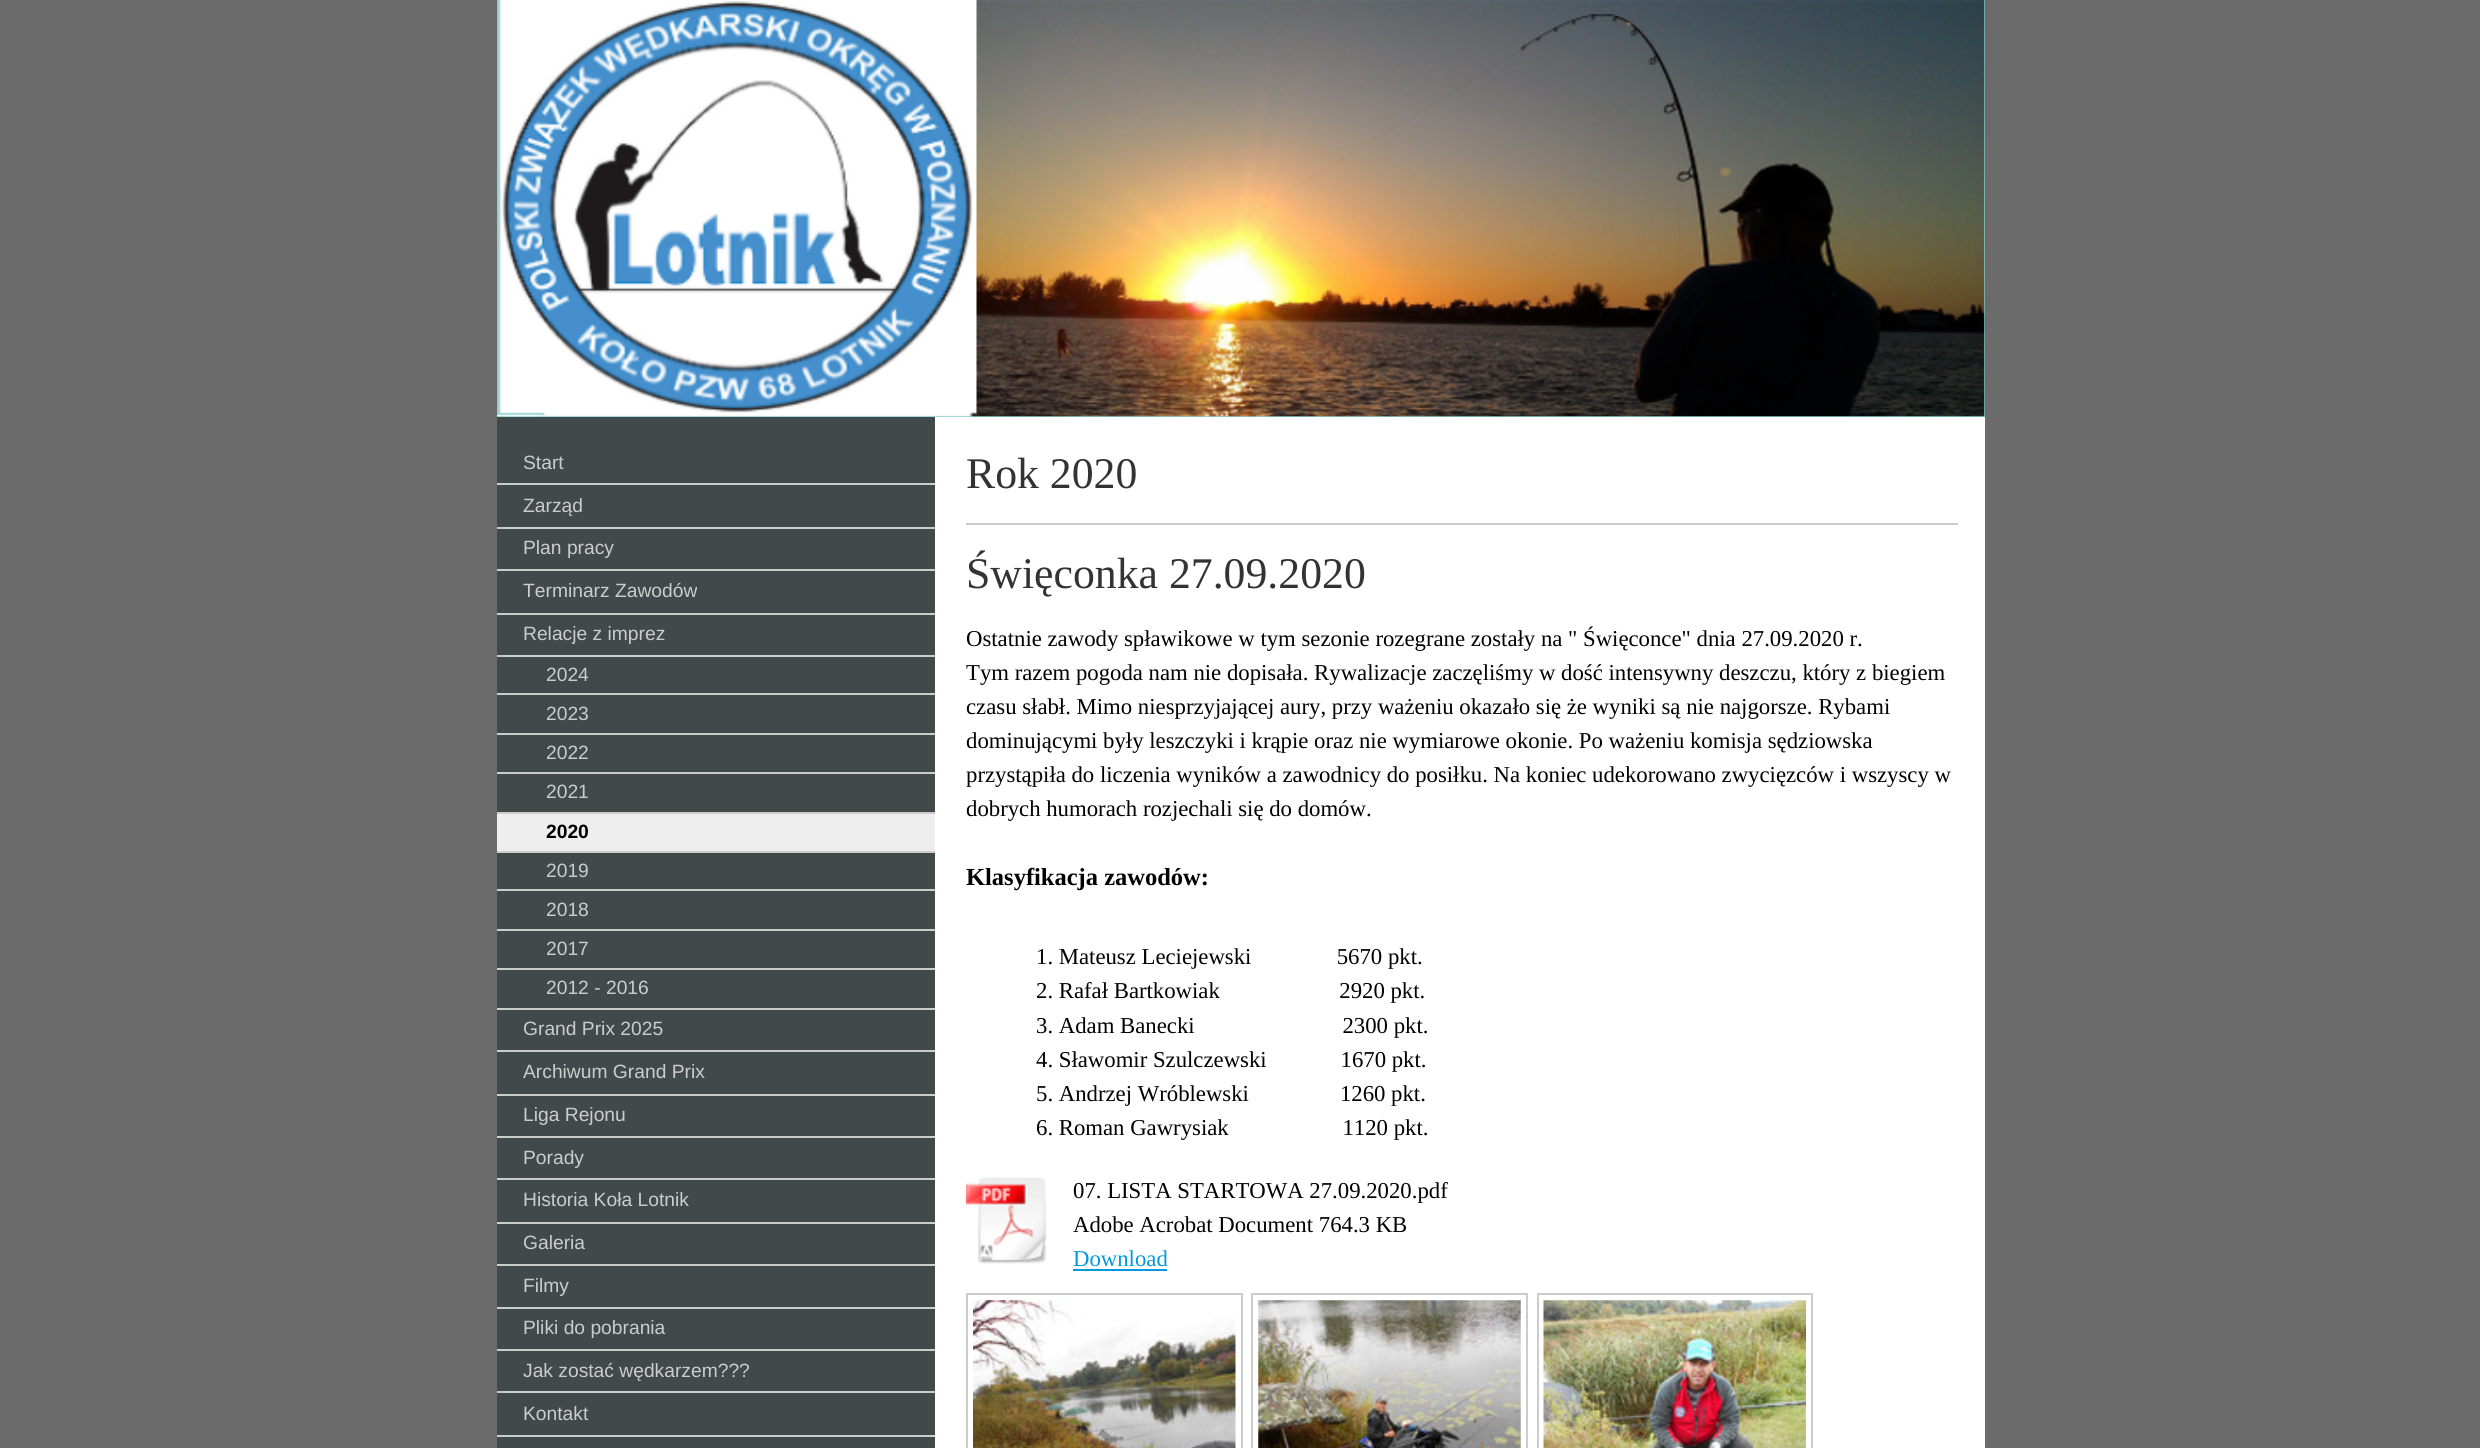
#include <cairo.h>
#include <math.h>
#include <stddef.h>

typedef struct { double x, y; const char *s; } line_t;

static void ink(cairo_t *ctx, unsigned color) {
    cairo_set_source_rgb(ctx, (color >> 16) / 255.0, (color >> 8 & 255) / 255.0, (color & 255) / 255.0);
}

static void paste(cairo_t *ctx, const char *path, double x, double y, double w, double h) {
    cairo_surface_t *image = cairo_image_surface_create_from_png(path);
    cairo_save(ctx);
    cairo_set_source_surface(ctx, image, x, y);
    cairo_rectangle(ctx, x, y, w, h);
    cairo_fill(ctx);
    cairo_restore(ctx);
    cairo_surface_destroy(image);
}

int main(void) {
    cairo_surface_t *surface = cairo_image_surface_create(CAIRO_FORMAT_RGB24, 2480, 1448);
    cairo_t *ctx = cairo_create(surface);
    cairo_font_options_t *options = cairo_font_options_create();
    cairo_font_options_set_hint_metrics(options, CAIRO_HINT_METRICS_OFF);
    cairo_font_options_set_hint_style(options, CAIRO_HINT_STYLE_NONE);
    cairo_set_font_options(ctx, options);
    cairo_set_miter_limit(ctx, 4);
    ink(ctx, 0x6B6B6B);
    cairo_paint(ctx);
    ink(ctx, 0xFFFFFF);
    cairo_rectangle(ctx, 935, 417, 1050, 1031);
    cairo_fill(ctx);
    ink(ctx, 0x89CECE);
    cairo_rectangle(ctx, 497, 0, 1488, 417);
    cairo_fill(ctx);
    paste(ctx, "media/1.png", 497, 0, 1488, 417);
    ink(ctx, 0x42494A);
    cairo_rectangle(ctx, 497, 417, 438, 1018);
    cairo_fill(ctx);
    ink(ctx, 0xCCCCCC);
    cairo_rectangle(ctx, 497, 483, 438, 2);
    cairo_fill(ctx);
    cairo_select_font_face(ctx, "Liberation Sans", CAIRO_FONT_SLANT_NORMAL, CAIRO_FONT_WEIGHT_NORMAL);
    cairo_set_font_size(ctx, 19.25);
    cairo_move_to(ctx, 523, 469);
    cairo_show_text(ctx, "Start");
    cairo_rectangle(ctx, 497, 527, 438, 2);
    cairo_fill(ctx);
    cairo_move_to(ctx, 523, 512);
    cairo_show_text(ctx, "Zarząd");
    cairo_rectangle(ctx, 497, 569, 438, 2);
    cairo_fill(ctx);
    cairo_move_to(ctx, 523, 554);
    cairo_show_text(ctx, "Plan pracy");
    cairo_rectangle(ctx, 497, 613, 438, 2);
    cairo_fill(ctx);
    cairo_move_to(ctx, 523, 597);
    cairo_show_text(ctx, "Terminarz Zawodów");
    cairo_rectangle(ctx, 497, 655, 438, 2);
    cairo_fill(ctx);
    cairo_move_to(ctx, 523, 640);
    cairo_show_text(ctx, "Relacje z imprez");
    cairo_rectangle(ctx, 497, 693, 438, 2);
    cairo_fill(ctx);
    cairo_move_to(ctx, 546, 681);
    cairo_show_text(ctx, "2024");
    cairo_rectangle(ctx, 497, 733, 438, 2);
    cairo_fill(ctx);
    cairo_move_to(ctx, 546, 720);
    cairo_show_text(ctx, "2023");
    cairo_rectangle(ctx, 497, 772, 438, 2);
    cairo_fill(ctx);
    cairo_move_to(ctx, 546, 759);
    cairo_show_text(ctx, "2022");
    cairo_rectangle(ctx, 497, 812, 438, 2);
    cairo_fill(ctx);
    cairo_move_to(ctx, 546, 798);
    cairo_show_text(ctx, "2021");
    ink(ctx, 0xEEEEEE);
    cairo_rectangle(ctx, 497, 814, 438, 37);
    cairo_fill(ctx);
    ink(ctx, 0xCCCCCC);
    cairo_rectangle(ctx, 497, 851, 438, 2);
    cairo_fill(ctx);
    cairo_select_font_face(ctx, "Liberation Sans", CAIRO_FONT_SLANT_NORMAL, CAIRO_FONT_WEIGHT_BOLD);
    ink(ctx, 0x000000);
    cairo_move_to(ctx, 546, 838);
    cairo_show_text(ctx, "2020");
    ink(ctx, 0xCCCCCC);
    cairo_rectangle(ctx, 497, 889, 438, 2);
    cairo_fill(ctx);
    cairo_select_font_face(ctx, "Liberation Sans", CAIRO_FONT_SLANT_NORMAL, CAIRO_FONT_WEIGHT_NORMAL);
    cairo_move_to(ctx, 546, 877);
    cairo_show_text(ctx, "2019");
    cairo_rectangle(ctx, 497, 929, 438, 2);
    cairo_fill(ctx);
    cairo_move_to(ctx, 546, 916);
    cairo_show_text(ctx, "2018");
    cairo_rectangle(ctx, 497, 968, 438, 2);
    cairo_fill(ctx);
    cairo_move_to(ctx, 546, 955);
    cairo_show_text(ctx, "2017");
    cairo_rectangle(ctx, 497, 1008, 438, 2);
    cairo_fill(ctx);
    cairo_move_to(ctx, 546, 994);
    cairo_show_text(ctx, "2012 - 2016");
    cairo_rectangle(ctx, 497, 1050, 438, 2);
    cairo_fill(ctx);
    cairo_move_to(ctx, 523, 1035);
    cairo_show_text(ctx, "Grand Prix 2025");
    cairo_rectangle(ctx, 497, 1094, 438, 2);
    cairo_fill(ctx);
    cairo_move_to(ctx, 523, 1078);
    cairo_show_text(ctx, "Archiwum Grand Prix");
    cairo_rectangle(ctx, 497, 1136, 438, 2);
    cairo_fill(ctx);
    cairo_move_to(ctx, 523, 1121);
    cairo_show_text(ctx, "Liga Rejonu");
    cairo_rectangle(ctx, 497, 1178, 438, 2);
    cairo_fill(ctx);
    cairo_move_to(ctx, 523, 1164);
    cairo_show_text(ctx, "Porady");
    cairo_rectangle(ctx, 497, 1222, 438, 2);
    cairo_fill(ctx);
    cairo_move_to(ctx, 523, 1206);
    cairo_show_text(ctx, "Historia Koła Lotnik");
    cairo_rectangle(ctx, 497, 1264, 438, 2);
    cairo_fill(ctx);
    cairo_move_to(ctx, 523, 1249);
    cairo_show_text(ctx, "Galeria");
    cairo_rectangle(ctx, 497, 1307, 438, 2);
    cairo_fill(ctx);
    cairo_move_to(ctx, 523, 1292);
    cairo_show_text(ctx, "Filmy");
    cairo_rectangle(ctx, 497, 1349, 438, 2);
    cairo_fill(ctx);
    cairo_move_to(ctx, 523, 1334);
    cairo_show_text(ctx, "Pliki do pobrania");
    cairo_rectangle(ctx, 497, 1391, 438, 2);
    cairo_fill(ctx);
    cairo_move_to(ctx, 523, 1377);
    cairo_show_text(ctx, "Jak zostać wędkarzem?\077?");
    cairo_rectangle(ctx, 497, 1435, 438, 2);
    cairo_fill(ctx);
    cairo_move_to(ctx, 523, 1420);
    cairo_show_text(ctx, "Kontakt");
    cairo_select_font_face(ctx, "Liberation Serif", CAIRO_FONT_SLANT_NORMAL, CAIRO_FONT_WEIGHT_NORMAL);
    cairo_set_font_size(ctx, 43.75);
    ink(ctx, 0x333333);
    cairo_move_to(ctx, 966, 488);
    cairo_show_text(ctx, "Rok 2020");
    ink(ctx, 0xCCCCCC);
    cairo_rectangle(ctx, 966, 523, 992, 2);
    cairo_fill(ctx);
    ink(ctx, 0x333333);
    cairo_move_to(ctx, 966, 588);
    cairo_show_text(ctx, "Święconka 27.09.2020");
    cairo_set_font_size(ctx, 22.75);
    ink(ctx, 0x000000);
    {
        static const line_t items[] = {
            {966, 646, "Ostatnie zawody spławikowe w tym sezonie rozegrane zostały na \" Święconce\" dnia 27.09.2020 r."},
            {966, 680, "Tym razem pogoda nam nie dopisała. Rywalizacje zaczęliśmy w dość intensywny deszczu, który z biegiem"},
            {966, 714, "czasu słabł. Mimo niesprzyjającej aury, przy ważeniu okazało się że wyniki są nie najgorsze. Rybami"},
            {966, 748, "dominującymi były leszczyki i krąpie oraz nie wymiarowe okonie. Po ważeniu komisja sędziowska"},
            {966, 782, "przystąpiła do liczenia wyników a zawodnicy do posiłku. Na koniec udekorowano zwycięzców i wszyscy w"},
            {966, 816, "dobrych humorach rozjechali się do domów."},
        };
        for (size_t i = 0; i < sizeof items / sizeof *items; i++) {
            cairo_move_to(ctx, items[i].x, items[i].y);
            cairo_show_text(ctx, items[i].s);
        }
    }
    cairo_select_font_face(ctx, "Liberation Serif", CAIRO_FONT_SLANT_NORMAL, CAIRO_FONT_WEIGHT_BOLD);
    cairo_set_font_size(ctx, 24.5);
    cairo_move_to(ctx, 966, 885);
    cairo_show_text(ctx, "Klasyfikacja zawodów:");
    cairo_select_font_face(ctx, "Liberation Serif", CAIRO_FONT_SLANT_NORMAL, CAIRO_FONT_WEIGHT_NORMAL);
    cairo_set_font_size(ctx, 22.75);
    {
        static const line_t items[] = {
            {1036, 964, "1. Mateusz Leciejewski               5670 pkt."},
            {1036, 998, "2. Rafał Bartkowiak                     2920 pkt."},
            {1036, 1033, "3. Adam Banecki                          2300 pkt."},
            {1036, 1067, "4. Sławomir Szulczewski             1670 pkt."},
            {1036, 1101, "5. Andrzej Wróblewski                1260 pkt."},
            {1036, 1135, "6. Roman Gawrysiak                    1120 pkt."},
        };
        for (size_t i = 0; i < sizeof items / sizeof *items; i++) {
            cairo_move_to(ctx, items[i].x, items[i].y);
            cairo_show_text(ctx, items[i].s);
        }
    }
    paste(ctx, "media/2.png", 966, 1177, 81, 87);
    cairo_move_to(ctx, 1073, 1198);
    cairo_show_text(ctx, "07. LISTA STARTOWA 27.09.2020.pdf");
    cairo_move_to(ctx, 1073, 1232);
    cairo_show_text(ctx, "Adobe Acrobat Document 764.3 KB");
    ink(ctx, 0x0099E1);
    cairo_move_to(ctx, 1073, 1266);
    cairo_show_text(ctx, "Download");
    cairo_rectangle(ctx, 1073, 1269, 94, 2);
    cairo_fill(ctx);
    cairo_rectangle(ctx, 967, 1294, 275, 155);
    ink(ctx, 0xCCCCCC);
    cairo_stroke(ctx);
    paste(ctx, "media/3.png", 973, 1300, 263, 148);
    cairo_rectangle(ctx, 1252, 1294, 275, 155);
    cairo_stroke(ctx);
    paste(ctx, "media/4.png", 1258, 1300, 263, 148);
    cairo_rectangle(ctx, 1538, 1294, 274, 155);
    cairo_stroke(ctx);
    paste(ctx, "media/5.png", 1543, 1300, 263, 148);
    ink(ctx, 0x42494A);
    cairo_rectangle(ctx, 497, 1437, 438, 11);
    cairo_fill(ctx);
    cairo_surface_write_to_png(surface, "image.png");
    cairo_font_options_destroy(options);
    cairo_destroy(ctx);
    cairo_surface_destroy(surface);
    return 0;
}
